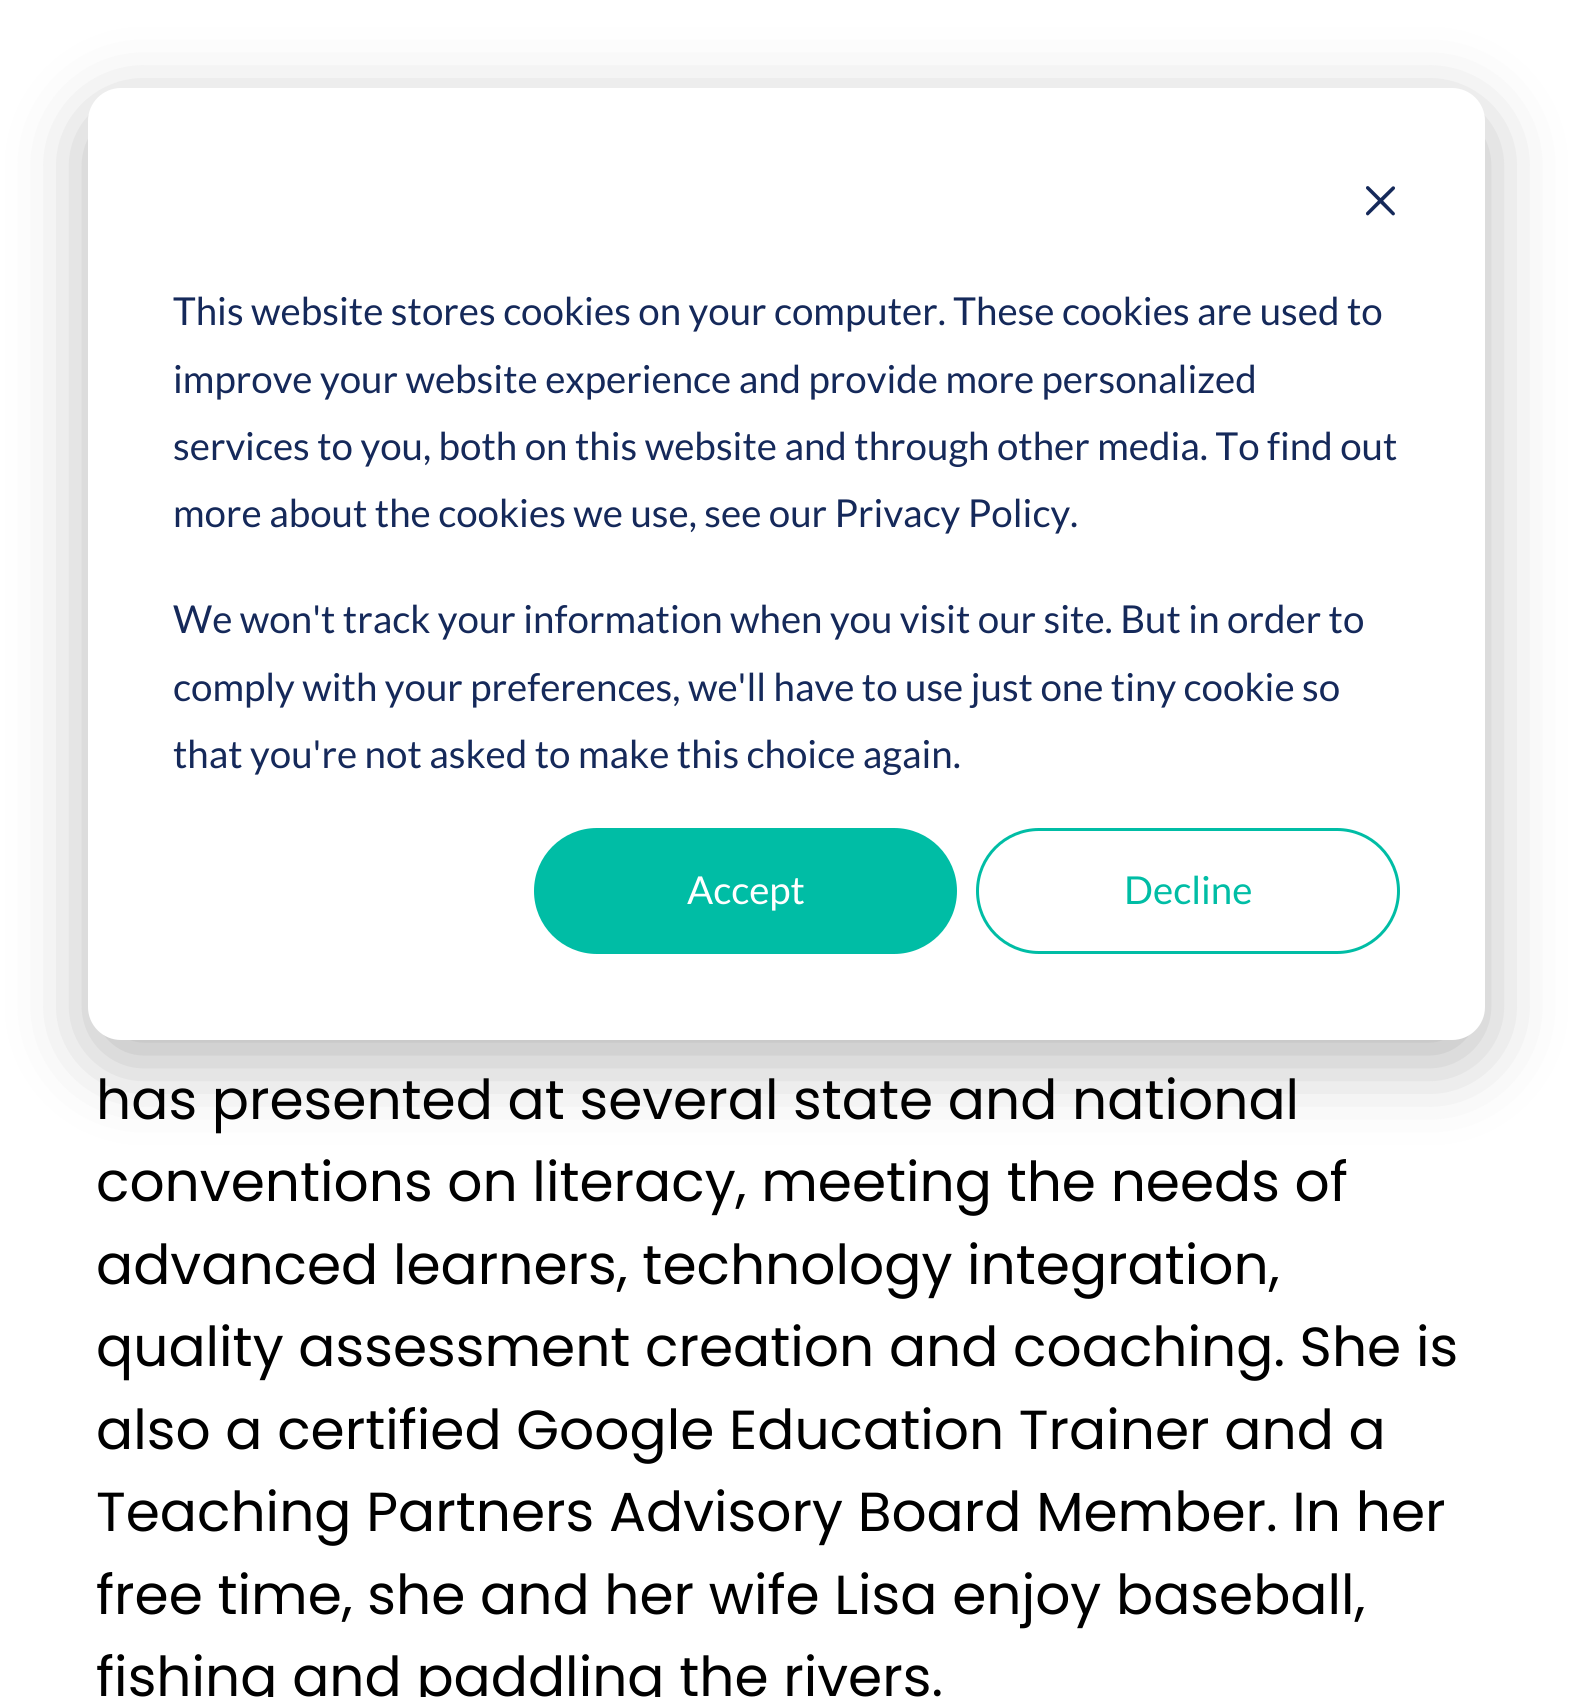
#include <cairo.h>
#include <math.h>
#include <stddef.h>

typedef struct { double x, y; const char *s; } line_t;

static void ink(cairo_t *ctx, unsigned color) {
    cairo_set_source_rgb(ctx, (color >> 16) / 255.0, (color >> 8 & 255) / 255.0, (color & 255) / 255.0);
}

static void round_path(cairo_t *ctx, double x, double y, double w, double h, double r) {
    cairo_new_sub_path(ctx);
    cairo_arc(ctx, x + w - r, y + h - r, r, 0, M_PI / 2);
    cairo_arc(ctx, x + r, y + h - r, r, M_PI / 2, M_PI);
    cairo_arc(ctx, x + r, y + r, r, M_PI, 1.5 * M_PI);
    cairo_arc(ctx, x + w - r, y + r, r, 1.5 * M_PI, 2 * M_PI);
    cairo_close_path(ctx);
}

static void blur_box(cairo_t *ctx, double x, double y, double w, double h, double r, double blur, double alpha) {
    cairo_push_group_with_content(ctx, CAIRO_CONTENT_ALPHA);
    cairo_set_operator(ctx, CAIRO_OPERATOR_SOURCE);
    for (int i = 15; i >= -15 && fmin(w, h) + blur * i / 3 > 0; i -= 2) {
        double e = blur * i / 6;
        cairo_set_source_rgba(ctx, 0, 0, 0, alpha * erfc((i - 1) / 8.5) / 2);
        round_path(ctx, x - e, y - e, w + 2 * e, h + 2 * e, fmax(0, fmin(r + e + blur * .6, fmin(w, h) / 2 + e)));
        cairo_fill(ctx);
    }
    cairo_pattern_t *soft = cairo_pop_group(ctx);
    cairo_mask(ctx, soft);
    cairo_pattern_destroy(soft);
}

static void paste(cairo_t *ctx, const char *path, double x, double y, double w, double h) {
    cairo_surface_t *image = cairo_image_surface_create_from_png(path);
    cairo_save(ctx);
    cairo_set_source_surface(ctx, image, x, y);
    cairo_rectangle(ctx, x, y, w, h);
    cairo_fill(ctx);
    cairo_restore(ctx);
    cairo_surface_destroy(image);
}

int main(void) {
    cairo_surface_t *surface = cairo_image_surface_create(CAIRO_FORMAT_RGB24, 1571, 1697);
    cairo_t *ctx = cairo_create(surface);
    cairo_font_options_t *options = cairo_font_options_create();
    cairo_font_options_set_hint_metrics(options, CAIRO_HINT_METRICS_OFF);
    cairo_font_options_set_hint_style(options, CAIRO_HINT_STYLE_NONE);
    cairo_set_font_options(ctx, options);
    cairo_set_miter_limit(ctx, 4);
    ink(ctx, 0xFFFFFF);
    cairo_paint(ctx);
    ink(ctx, 0x000000);
    blur_box(ctx, 88, 110, 1397, 952, 33, 38.5, 0.28);
    ink(ctx, 0xFFFFFF);
    round_path(ctx, 88, 88, 1397, 952, 33);
    cairo_fill(ctx);
    paste(ctx, "media/1.png", 1366, 186, 29, 30);
    cairo_select_font_face(ctx, "Lato", CAIRO_FONT_SLANT_NORMAL, CAIRO_FONT_WEIGHT_NORMAL);
    cairo_set_font_size(ctx, 38.5);
    ink(ctx, 0x15295A);
    {
        static const line_t items[] = {
            {173, 325, "This website stores cookies on your computer. These cookies are used to"},
            {173, 393, "improve your website experience and provide more personalized"},
            {173, 460, "services to you, both on this website and through other media. To find out"},
            {173, 527, "more about the cookies we use, see our Privacy Policy."},
            {173, 633, "We won't track your information when you visit our site. But in order to"},
            {173, 701, "comply with your preferences, we'll have to use just one tiny cookie so"},
            {173, 768, "that you're not asked to make this choice again."},
        };
        for (size_t i = 0; i < sizeof items / sizeof *items; i++) {
            cairo_move_to(ctx, items[i].x, items[i].y);
            cairo_show_text(ctx, items[i].s);
        }
    }
    ink(ctx, 0x00BDA5);
    round_path(ctx, 535.5, 829.5, 420, 123, 61.5);
    cairo_fill_preserve(ctx);
    cairo_set_line_width(ctx, 3);
    cairo_stroke(ctx);
    ink(ctx, 0xFFFFFF);
    cairo_move_to(ctx, 687, 904);
    cairo_show_text(ctx, "Accept");
    round_path(ctx, 977.5, 829.5, 421, 123, 61.5);
    ink(ctx, 0x00BDA5);
    cairo_stroke(ctx);
    cairo_move_to(ctx, 1124, 904);
    cairo_show_text(ctx, "Decline");
    cairo_select_font_face(ctx, "Poppins", CAIRO_FONT_SLANT_NORMAL, CAIRO_FONT_WEIGHT_NORMAL);
    cairo_set_font_size(ctx, 55);
    ink(ctx, 0x000000);
    {
        static const line_t items[] = {
            {96, 1119, "has presented at several state and national"},
            {96, 1201, "conventions on literacy, meeting the needs of"},
            {96, 1284, "advanced learners, technology integration,"},
            {96, 1366, "quality assessment creation and coaching. She is"},
            {96, 1449, "also a certified Google Education Trainer and a"},
            {96, 1531, "Teaching Partners Advisory Board Member. In her"},
            {96, 1614, "free time, she and her wife Lisa enjoy baseball,"},
            {96, 1696, "fishing and paddling the rivers."},
        };
        for (size_t i = 0; i < sizeof items / sizeof *items; i++) {
            cairo_move_to(ctx, items[i].x, items[i].y);
            cairo_show_text(ctx, items[i].s);
        }
    }
    cairo_surface_write_to_png(surface, "image.png");
    cairo_font_options_destroy(options);
    cairo_destroy(ctx);
    cairo_surface_destroy(surface);
    return 0;
}
